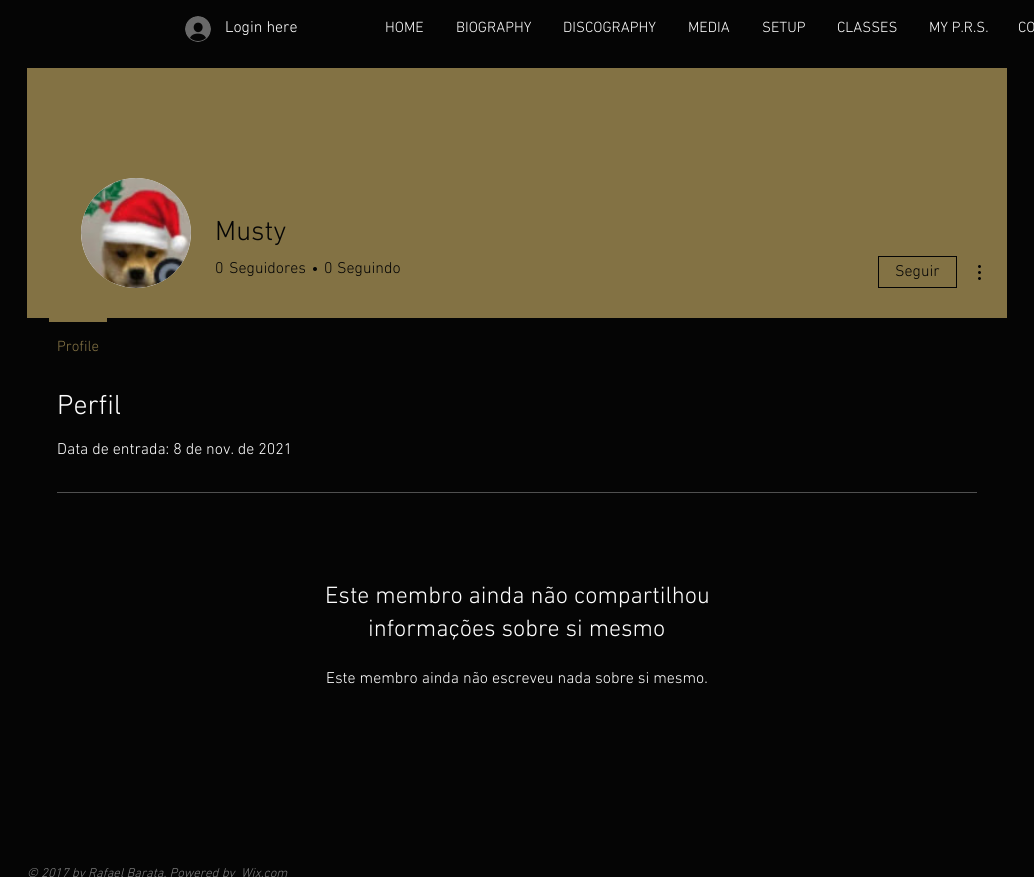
#include <cairo.h>
#include <math.h>
#include <stddef.h>

typedef struct { double x, y; const char *s; } line_t;

static void ink(cairo_t *ctx, unsigned color) {
    cairo_set_source_rgb(ctx, (color >> 16) / 255.0, (color >> 8 & 255) / 255.0, (color & 255) / 255.0);
}

static void paste(cairo_t *ctx, const char *path, double x, double y, double w, double h) {
    cairo_surface_t *image = cairo_image_surface_create_from_png(path);
    cairo_save(ctx);
    cairo_set_source_surface(ctx, image, x, y);
    cairo_rectangle(ctx, x, y, w, h);
    cairo_fill(ctx);
    cairo_restore(ctx);
    cairo_surface_destroy(image);
}

int main(void) {
    cairo_surface_t *surface = cairo_image_surface_create(CAIRO_FORMAT_RGB24, 1034, 877);
    cairo_t *ctx = cairo_create(surface);
    cairo_font_options_t *options = cairo_font_options_create();
    cairo_font_options_set_hint_metrics(options, CAIRO_HINT_METRICS_OFF);
    cairo_font_options_set_hint_style(options, CAIRO_HINT_STYLE_NONE);
    cairo_set_font_options(ctx, options);
    cairo_set_miter_limit(ctx, 4);
    ink(ctx, 0x050505);
    cairo_paint(ctx);
    paste(ctx, "media/1.png", 185, 16, 26, 26);
    cairo_select_font_face(ctx, "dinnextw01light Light", CAIRO_FONT_SLANT_NORMAL, CAIRO_FONT_WEIGHT_NORMAL);
    cairo_set_font_size(ctx, 16);
    ink(ctx, 0xFFFFFF);
    cairo_move_to(ctx, 225, 32);
    cairo_show_text(ctx, "Login here");
    cairo_set_font_size(ctx, 15);
    {
        static const line_t items[] = {
            {385, 32, "HOME"},
            {456, 32, "BIOGRAPHY"},
            {563, 32, "DISCOGRAPHY"},
            {688, 32, "MEDIA"},
            {762, 32, "SETUP"},
            {837, 32, "CLASSES"},
            {929, 32, "MY P.R.S."},
            {1018, 32, "CO"},
        };
        for (size_t i = 0; i < sizeof items / sizeof *items; i++) {
            cairo_move_to(ctx, items[i].x, items[i].y);
            cairo_show_text(ctx, items[i].s);
        }
    }
    ink(ctx, 0x837244);
    cairo_rectangle(ctx, 27, 68, 980, 250);
    cairo_fill(ctx);
    ink(ctx, 0xD8D8D8);
    cairo_arc(ctx, 136, 233, 55, 0, 2 * M_PI);
    cairo_fill(ctx);
    paste(ctx, "media/2.png", 81, 178, 110, 110);
    cairo_set_font_size(ctx, 28);
    ink(ctx, 0x050505);
    cairo_move_to(ctx, 215, 240);
    cairo_show_text(ctx, "Musty");
    cairo_set_font_size(ctx, 16);
    cairo_move_to(ctx, 215, 273);
    cairo_show_text(ctx, "0");
    cairo_move_to(ctx, 229, 273);
    cairo_show_text(ctx, "Seguidores");
    cairo_new_path(ctx);
    cairo_arc(ctx, 315, 269, 2, 0, 2 * M_PI);
    cairo_fill(ctx);
    cairo_move_to(ctx, 324, 273);
    cairo_show_text(ctx, "0");
    cairo_move_to(ctx, 337, 273);
    cairo_show_text(ctx, "Seguindo");
    cairo_rectangle(ctx, 878.5, 256.5, 78, 31);
    cairo_set_line_width(ctx, 1);
    cairo_stroke(ctx);
    cairo_move_to(ctx, 895, 276);
    cairo_show_text(ctx, "Seguir");
    paste(ctx, "media/3.png", 978, 265, 3, 15);
    ink(ctx, 0x837244);
    cairo_rectangle(ctx, 49, 318, 58, 4);
    cairo_fill(ctx);
    cairo_set_font_size(ctx, 15);
    cairo_move_to(ctx, 57, 351);
    cairo_show_text(ctx, "Profile");
    cairo_set_font_size(ctx, 28);
    ink(ctx, 0xFFFFFF);
    cairo_move_to(ctx, 57, 414);
    cairo_show_text(ctx, "Perfil");
    cairo_set_font_size(ctx, 16);
    cairo_move_to(ctx, 57, 454);
    cairo_show_text(ctx, "Data de entrada: 8 de nov. de 2021");
    ink(ctx, 0x505050);
    cairo_rectangle(ctx, 57, 492, 920, 1);
    cairo_fill(ctx);
    cairo_set_font_size(ctx, 24);
    ink(ctx, 0xFFFFFF);
    cairo_move_to(ctx, 325, 603);
    cairo_show_text(ctx, "Este membro ainda não compartilhou");
    cairo_move_to(ctx, 368, 636);
    cairo_show_text(ctx, "informações sobre si mesmo");
    cairo_set_font_size(ctx, 16);
    cairo_move_to(ctx, 326, 683);
    cairo_show_text(ctx, "Este membro ainda não escreveu nada sobre si mesmo.");
    cairo_select_font_face(ctx, "dinnextw01light Light", CAIRO_FONT_SLANT_ITALIC, CAIRO_FONT_WEIGHT_NORMAL);
    cairo_set_font_size(ctx, 13);
    ink(ctx, 0x808080);
    cairo_move_to(ctx, 27, 877);
    cairo_show_text(ctx, "© 2017 by Rafael Barata. Powered by");
    cairo_move_to(ctx, 241, 877);
    cairo_show_text(ctx, "Wix.com");
    cairo_surface_write_to_png(surface, "image.png");
    cairo_font_options_destroy(options);
    cairo_destroy(ctx);
    cairo_surface_destroy(surface);
    return 0;
}
